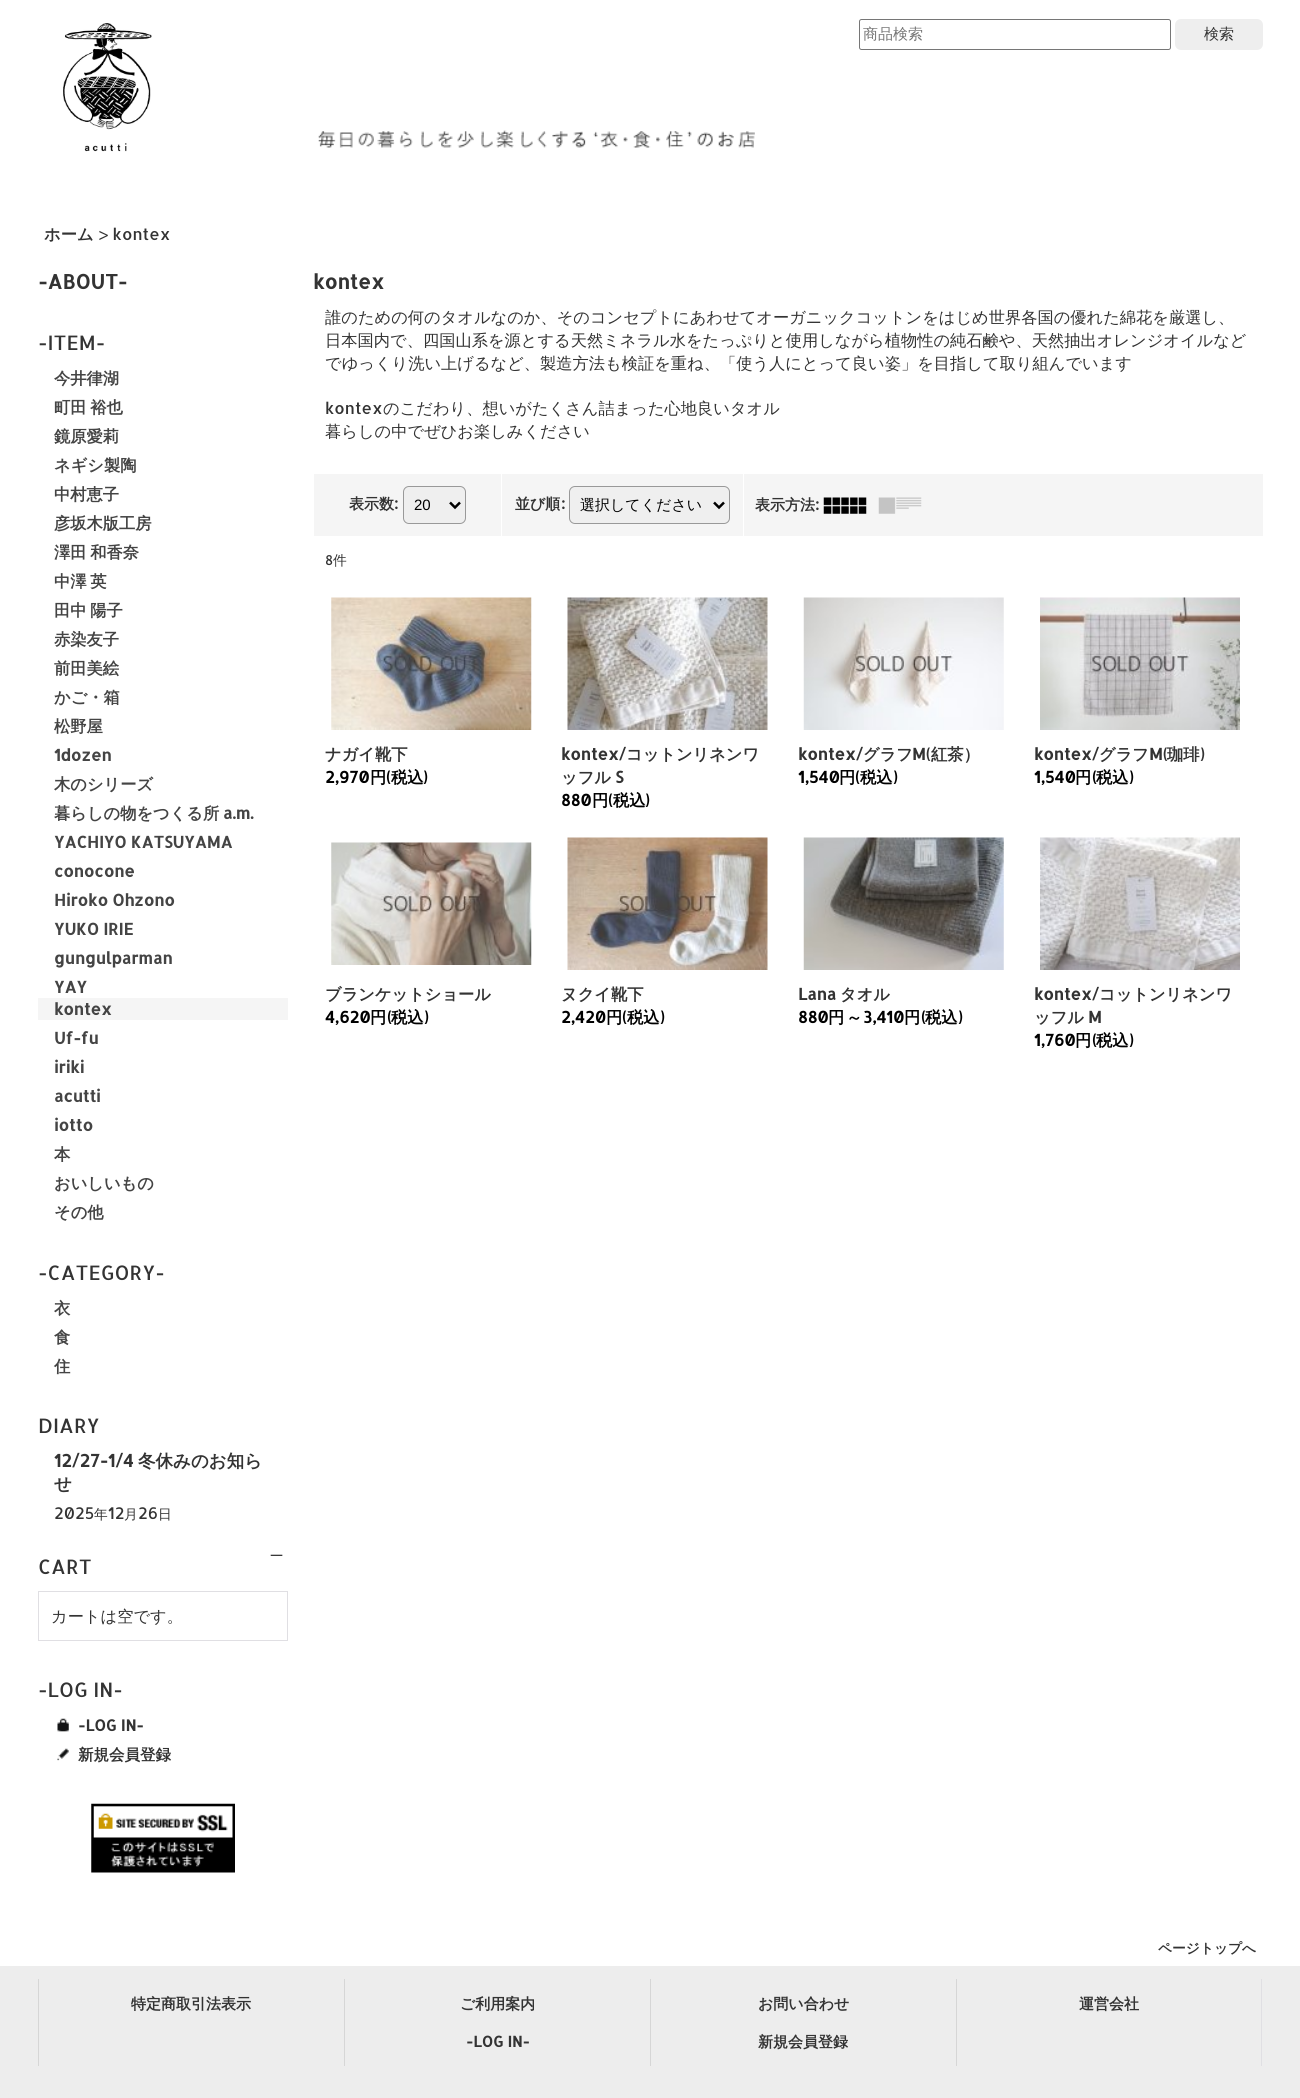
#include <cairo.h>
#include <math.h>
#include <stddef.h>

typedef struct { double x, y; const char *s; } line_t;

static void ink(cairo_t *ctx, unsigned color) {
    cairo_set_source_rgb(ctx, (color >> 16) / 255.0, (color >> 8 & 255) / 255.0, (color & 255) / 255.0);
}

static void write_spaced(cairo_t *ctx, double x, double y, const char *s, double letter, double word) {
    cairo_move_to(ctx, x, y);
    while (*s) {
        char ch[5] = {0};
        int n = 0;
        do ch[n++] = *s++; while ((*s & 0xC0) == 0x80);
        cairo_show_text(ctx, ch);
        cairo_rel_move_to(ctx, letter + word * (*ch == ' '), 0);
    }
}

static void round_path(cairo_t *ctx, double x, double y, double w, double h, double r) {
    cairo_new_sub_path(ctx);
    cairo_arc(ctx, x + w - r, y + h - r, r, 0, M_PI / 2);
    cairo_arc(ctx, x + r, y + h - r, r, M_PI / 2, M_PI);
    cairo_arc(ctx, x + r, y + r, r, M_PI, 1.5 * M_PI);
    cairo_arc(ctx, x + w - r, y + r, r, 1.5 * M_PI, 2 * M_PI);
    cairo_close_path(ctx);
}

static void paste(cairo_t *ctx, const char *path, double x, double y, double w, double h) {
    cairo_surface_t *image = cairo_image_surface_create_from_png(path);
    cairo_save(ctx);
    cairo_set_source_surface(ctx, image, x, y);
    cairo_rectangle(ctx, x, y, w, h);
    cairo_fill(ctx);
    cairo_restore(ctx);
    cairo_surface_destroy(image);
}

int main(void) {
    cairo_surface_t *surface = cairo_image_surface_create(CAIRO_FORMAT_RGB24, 1300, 2098);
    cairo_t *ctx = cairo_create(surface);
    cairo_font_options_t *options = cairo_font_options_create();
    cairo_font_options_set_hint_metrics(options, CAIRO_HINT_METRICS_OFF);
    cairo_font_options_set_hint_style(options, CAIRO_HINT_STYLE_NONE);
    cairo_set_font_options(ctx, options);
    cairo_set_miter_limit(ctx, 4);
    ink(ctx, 0xFFFFFF);
    cairo_paint(ctx);
    paste(ctx, "media/1.png", 63, 23, 89, 129);
    round_path(ctx, 859.5, 19.5, 311, 30, 2);
    ink(ctx, 0x767676);
    cairo_set_line_width(ctx, 1);
    cairo_stroke(ctx);
    cairo_select_font_face(ctx, "WenQuanYi Zen Hei Medium", CAIRO_FONT_SLANT_NORMAL, CAIRO_FONT_WEIGHT_NORMAL);
    cairo_set_font_size(ctx, 15);
    ink(ctx, 0x757575);
    cairo_move_to(ctx, 863, 39);
    cairo_show_text(ctx, "商品検索");
    ink(ctx, 0xEEEEEE);
    round_path(ctx, 1175, 19, 88, 31, 6);
    cairo_fill(ctx);
    ink(ctx, 0x333333);
    cairo_move_to(ctx, 1204, 39);
    cairo_show_text(ctx, "検索");
    paste(ctx, "media/2.png", 318, 130, 437, 18);
    cairo_select_font_face(ctx, "WenQuanYi Zen Hei", CAIRO_FONT_SLANT_NORMAL, CAIRO_FONT_WEIGHT_BOLD);
    cairo_set_font_size(ctx, 16.25);
    cairo_move_to(ctx, 44, 240);
    cairo_show_text(ctx, "ホーム");
    cairo_select_font_face(ctx, "Allerta", CAIRO_FONT_SLANT_NORMAL, CAIRO_FONT_WEIGHT_NORMAL);
    cairo_move_to(ctx, 98, 240);
    cairo_show_text(ctx, "> kontex");
    cairo_select_font_face(ctx, "Allerta", CAIRO_FONT_SLANT_NORMAL, CAIRO_FONT_WEIGHT_BOLD);
    cairo_set_font_size(ctx, 20);
    cairo_move_to(ctx, 38, 289);
    cairo_show_text(ctx, "-ABOUT-");
    cairo_select_font_face(ctx, "Allerta", CAIRO_FONT_SLANT_NORMAL, CAIRO_FONT_WEIGHT_NORMAL);
    cairo_move_to(ctx, 38, 350);
    cairo_show_text(ctx, "-ITEM-");
    cairo_select_font_face(ctx, "WenQuanYi Zen Hei", CAIRO_FONT_SLANT_NORMAL, CAIRO_FONT_WEIGHT_BOLD);
    cairo_set_font_size(ctx, 16.25);
    ink(ctx, 0x444444);
    cairo_move_to(ctx, 54, 384);
    cairo_show_text(ctx, "今井律湖");
    write_spaced(ctx, 54, 413, "町田 裕也", 0, -1);
    {
        static const line_t items[] = {
            {54, 442, "鏡原愛莉"},
            {54, 471, "ネギシ製陶"},
            {54, 500, "中村恵子"},
            {54, 529, "彦坂木版工房"},
        };
        for (size_t i = 0; i < sizeof items / sizeof *items; i++) {
            cairo_move_to(ctx, items[i].x, items[i].y);
            cairo_show_text(ctx, items[i].s);
        }
    }
    {
        static const line_t items[] = {
            {54, 558, "澤田 和香奈"},
            {54, 587, "中澤 英"},
            {54, 616, "田中 陽子"},
        };
        for (size_t i = 0; i < sizeof items / sizeof *items; i++) {
            write_spaced(ctx, items[i].x, items[i].y, items[i].s, 0, -1);
        }
    }
    {
        static const line_t items[] = {
            {54, 645, "赤染友子"},
            {54, 674, "前田美絵"},
            {54, 703, "かご・箱"},
            {54, 732, "松野屋"},
        };
        for (size_t i = 0; i < sizeof items / sizeof *items; i++) {
            cairo_move_to(ctx, items[i].x, items[i].y);
            cairo_show_text(ctx, items[i].s);
        }
    }
    cairo_select_font_face(ctx, "Allerta", CAIRO_FONT_SLANT_NORMAL, CAIRO_FONT_WEIGHT_BOLD);
    cairo_move_to(ctx, 54, 761);
    cairo_show_text(ctx, "1dozen");
    cairo_select_font_face(ctx, "WenQuanYi Zen Hei", CAIRO_FONT_SLANT_NORMAL, CAIRO_FONT_WEIGHT_BOLD);
    cairo_move_to(ctx, 54, 790);
    cairo_show_text(ctx, "木のシリーズ");
    cairo_move_to(ctx, 54, 819);
    cairo_show_text(ctx, "暮らしの物をつくる所");
    cairo_select_font_face(ctx, "Allerta", CAIRO_FONT_SLANT_NORMAL, CAIRO_FONT_WEIGHT_BOLD);
    {
        static const line_t items[] = {
            {223, 819, "a.m."},
            {54, 848, "YACHIYO KATSUYAMA"},
            {54, 877, "conocone"},
            {54, 906, "Hiroko Ohzono"},
            {54, 935, "YUKO IRIE"},
            {54, 964, "gungulparman"},
            {54, 993, "YAY"},
        };
        for (size_t i = 0; i < sizeof items / sizeof *items; i++) {
            cairo_move_to(ctx, items[i].x, items[i].y);
            cairo_show_text(ctx, items[i].s);
        }
    }
    ink(ctx, 0xF5F5F5);
    cairo_rectangle(ctx, 38, 998, 250, 22);
    cairo_fill(ctx);
    ink(ctx, 0x444444);
    {
        static const line_t items[] = {
            {54, 1015, "kontex"},
            {54, 1044, "Uf-fu"},
            {54, 1073, "iriki"},
            {54, 1102, "acutti"},
            {54, 1131, "iotto"},
        };
        for (size_t i = 0; i < sizeof items / sizeof *items; i++) {
            cairo_move_to(ctx, items[i].x, items[i].y);
            cairo_show_text(ctx, items[i].s);
        }
    }
    cairo_select_font_face(ctx, "WenQuanYi Zen Hei", CAIRO_FONT_SLANT_NORMAL, CAIRO_FONT_WEIGHT_BOLD);
    {
        static const line_t items[] = {
            {54, 1160, "本"},
            {54, 1189, "おいしいもの"},
            {54, 1218, "その他"},
        };
        for (size_t i = 0; i < sizeof items / sizeof *items; i++) {
            cairo_move_to(ctx, items[i].x, items[i].y);
            cairo_show_text(ctx, items[i].s);
        }
    }
    cairo_select_font_face(ctx, "Allerta", CAIRO_FONT_SLANT_NORMAL, CAIRO_FONT_WEIGHT_NORMAL);
    cairo_set_font_size(ctx, 20);
    ink(ctx, 0x333333);
    cairo_move_to(ctx, 38, 1280);
    cairo_show_text(ctx, "-CATEGORY-");
    cairo_select_font_face(ctx, "WenQuanYi Zen Hei", CAIRO_FONT_SLANT_NORMAL, CAIRO_FONT_WEIGHT_BOLD);
    cairo_set_font_size(ctx, 16.25);
    ink(ctx, 0x444444);
    {
        static const line_t items[] = {
            {54, 1314, "衣"},
            {54, 1343, "食"},
            {54, 1372, "住"},
        };
        for (size_t i = 0; i < sizeof items / sizeof *items; i++) {
            cairo_move_to(ctx, items[i].x, items[i].y);
            cairo_show_text(ctx, items[i].s);
        }
    }
    cairo_select_font_face(ctx, "Allerta", CAIRO_FONT_SLANT_NORMAL, CAIRO_FONT_WEIGHT_NORMAL);
    cairo_set_font_size(ctx, 20);
    ink(ctx, 0x333333);
    cairo_move_to(ctx, 38, 1433);
    cairo_show_text(ctx, "DIARY");
    cairo_select_font_face(ctx, "Allerta", CAIRO_FONT_SLANT_NORMAL, CAIRO_FONT_WEIGHT_BOLD);
    cairo_set_font_size(ctx, 17.5);
    cairo_move_to(ctx, 54, 1467);
    cairo_show_text(ctx, "12/27-1/4");
    cairo_select_font_face(ctx, "WenQuanYi Zen Hei", CAIRO_FONT_SLANT_NORMAL, CAIRO_FONT_WEIGHT_BOLD);
    cairo_move_to(ctx, 138, 1467);
    cairo_show_text(ctx, "冬休みのお知ら");
    cairo_move_to(ctx, 54, 1490);
    cairo_show_text(ctx, "せ");
    cairo_select_font_face(ctx, "Allerta", CAIRO_FONT_SLANT_NORMAL, CAIRO_FONT_WEIGHT_NORMAL);
    cairo_set_font_size(ctx, 16.25);
    cairo_move_to(ctx, 54, 1519);
    cairo_show_text(ctx, "2025");
    cairo_select_font_face(ctx, "WenQuanYi Zen Hei Medium", CAIRO_FONT_SLANT_NORMAL, CAIRO_FONT_WEIGHT_NORMAL);
    cairo_set_font_size(ctx, 13.75);
    cairo_move_to(ctx, 94, 1519);
    cairo_show_text(ctx, "年");
    cairo_select_font_face(ctx, "Allerta", CAIRO_FONT_SLANT_NORMAL, CAIRO_FONT_WEIGHT_NORMAL);
    cairo_set_font_size(ctx, 16.25);
    cairo_move_to(ctx, 108, 1519);
    cairo_show_text(ctx, "12");
    cairo_select_font_face(ctx, "WenQuanYi Zen Hei Medium", CAIRO_FONT_SLANT_NORMAL, CAIRO_FONT_WEIGHT_NORMAL);
    cairo_set_font_size(ctx, 13.75);
    cairo_move_to(ctx, 124, 1519);
    cairo_show_text(ctx, "月");
    cairo_select_font_face(ctx, "Allerta", CAIRO_FONT_SLANT_NORMAL, CAIRO_FONT_WEIGHT_NORMAL);
    cairo_set_font_size(ctx, 16.25);
    cairo_move_to(ctx, 138, 1519);
    cairo_show_text(ctx, "26");
    cairo_select_font_face(ctx, "WenQuanYi Zen Hei Medium", CAIRO_FONT_SLANT_NORMAL, CAIRO_FONT_WEIGHT_NORMAL);
    cairo_set_font_size(ctx, 13.75);
    cairo_move_to(ctx, 158, 1519);
    cairo_show_text(ctx, "日");
    cairo_select_font_face(ctx, "Liberation Sans", CAIRO_FONT_SLANT_NORMAL, CAIRO_FONT_WEIGHT_NORMAL);
    cairo_set_font_size(ctx, 20);
    cairo_move_to(ctx, 271, 1552);
    cairo_show_text(ctx, "_");
    cairo_select_font_face(ctx, "Allerta", CAIRO_FONT_SLANT_NORMAL, CAIRO_FONT_WEIGHT_NORMAL);
    cairo_move_to(ctx, 38, 1574);
    cairo_show_text(ctx, "CART");
    cairo_rectangle(ctx, 38.5, 1591.5, 249, 49);
    ink(ctx, 0xE0DFE3);
    cairo_stroke(ctx);
    cairo_select_font_face(ctx, "WenQuanYi Zen Hei Medium", CAIRO_FONT_SLANT_NORMAL, CAIRO_FONT_WEIGHT_NORMAL);
    cairo_set_font_size(ctx, 16.25);
    ink(ctx, 0x333333);
    cairo_move_to(ctx, 51, 1622);
    cairo_show_text(ctx, "カートは空です。");
    cairo_select_font_face(ctx, "Allerta", CAIRO_FONT_SLANT_NORMAL, CAIRO_FONT_WEIGHT_NORMAL);
    cairo_set_font_size(ctx, 20);
    cairo_move_to(ctx, 38, 1697);
    cairo_show_text(ctx, "-LOG IN-");
    paste(ctx, "media/3.png", 57, 1718, 12, 14);
    cairo_select_font_face(ctx, "Allerta", CAIRO_FONT_SLANT_NORMAL, CAIRO_FONT_WEIGHT_BOLD);
    cairo_set_font_size(ctx, 15.5);
    cairo_move_to(ctx, 78, 1731);
    cairo_show_text(ctx, "-LOG IN-");
    paste(ctx, "media/4.png", 57, 1748, 12, 13);
    cairo_select_font_face(ctx, "WenQuanYi Zen Hei", CAIRO_FONT_SLANT_NORMAL, CAIRO_FONT_WEIGHT_BOLD);
    cairo_move_to(ctx, 78, 1760);
    cairo_show_text(ctx, "新規会員登録");
    paste(ctx, "media/5.png", 91, 1803, 144, 70);
    cairo_select_font_face(ctx, "Allerta", CAIRO_FONT_SLANT_NORMAL, CAIRO_FONT_WEIGHT_BOLD);
    cairo_set_font_size(ctx, 20);
    cairo_move_to(ctx, 313, 289);
    cairo_show_text(ctx, "kontex");
    cairo_select_font_face(ctx, "WenQuanYi Zen Hei Medium", CAIRO_FONT_SLANT_NORMAL, CAIRO_FONT_WEIGHT_NORMAL);
    cairo_set_font_size(ctx, 16.25);
    {
        static const line_t items[] = {
            {325, 323, "誰のための何のタオルなのか、そのコンセプトにあわせてオーガニックコットンをはじめ世界各国の優れた綿花を厳選し、"},
            {325, 346, "日本国内で、四国山系を源とする天然ミネラル水をたっぷりと使用しながら植物性の純石鹸や、天然抽出オレンジオイルなど"},
            {325, 369, "でゆっくり洗い上げるなど、製造方法も検証を重ね、「使う人にとって良い姿」を目指して取り組んでいます"},
        };
        for (size_t i = 0; i < sizeof items / sizeof *items; i++) {
            cairo_move_to(ctx, items[i].x, items[i].y);
            cairo_show_text(ctx, items[i].s);
        }
    }
    cairo_select_font_face(ctx, "Allerta", CAIRO_FONT_SLANT_NORMAL, CAIRO_FONT_WEIGHT_NORMAL);
    cairo_move_to(ctx, 325, 414);
    cairo_show_text(ctx, "kontex");
    cairo_select_font_face(ctx, "WenQuanYi Zen Hei Medium", CAIRO_FONT_SLANT_NORMAL, CAIRO_FONT_WEIGHT_NORMAL);
    cairo_move_to(ctx, 383, 414);
    cairo_show_text(ctx, "のこだわり、想いがたくさん詰まった心地良いタオル");
    cairo_move_to(ctx, 325, 437);
    cairo_show_text(ctx, "暮らしの中でぜひお楽しみください");
    ink(ctx, 0xF5F5F5);
    cairo_rectangle(ctx, 314, 474, 949, 62);
    cairo_fill(ctx);
    cairo_select_font_face(ctx, "WenQuanYi Zen Hei", CAIRO_FONT_SLANT_NORMAL, CAIRO_FONT_WEIGHT_BOLD);
    cairo_set_font_size(ctx, 15);
    ink(ctx, 0x333333);
    cairo_move_to(ctx, 349, 509);
    cairo_show_text(ctx, "表示数");
    cairo_select_font_face(ctx, "Allerta", CAIRO_FONT_SLANT_NORMAL, CAIRO_FONT_WEIGHT_BOLD);
    cairo_move_to(ctx, 394, 509);
    cairo_show_text(ctx, ":");
    ink(ctx, 0xEFEFEF);
    round_path(ctx, 403.5, 486.5, 62, 37, 5.5);
    cairo_fill_preserve(ctx);
    ink(ctx, 0x999999);
    cairo_stroke(ctx);
    cairo_new_path(ctx);
    cairo_move_to(ctx, 450, 502.5);
    cairo_line_to(ctx, 455, 507.5);
    cairo_line_to(ctx, 460, 502.5);
    ink(ctx, 0x000000);
    cairo_set_line_width(ctx, 2.5);
    cairo_stroke(ctx);
    cairo_select_font_face(ctx, "Liberation Sans", CAIRO_FONT_SLANT_NORMAL, CAIRO_FONT_WEIGHT_NORMAL);
    cairo_move_to(ctx, 414, 510);
    cairo_show_text(ctx, "20");
    ink(ctx, 0xFFFFFF);
    cairo_rectangle(ctx, 501, 474, 1, 62);
    cairo_fill(ctx);
    cairo_select_font_face(ctx, "WenQuanYi Zen Hei", CAIRO_FONT_SLANT_NORMAL, CAIRO_FONT_WEIGHT_BOLD);
    ink(ctx, 0x333333);
    cairo_move_to(ctx, 515, 509);
    cairo_show_text(ctx, "並び順");
    cairo_select_font_face(ctx, "Allerta", CAIRO_FONT_SLANT_NORMAL, CAIRO_FONT_WEIGHT_BOLD);
    cairo_move_to(ctx, 561, 509);
    cairo_show_text(ctx, ":");
    ink(ctx, 0xEFEFEF);
    round_path(ctx, 569.5, 486.5, 160, 37, 5.5);
    cairo_fill_preserve(ctx);
    ink(ctx, 0x999999);
    cairo_set_line_width(ctx, 1);
    cairo_stroke(ctx);
    cairo_new_path(ctx);
    cairo_move_to(ctx, 714, 502.5);
    cairo_line_to(ctx, 719, 507.5);
    cairo_line_to(ctx, 724, 502.5);
    ink(ctx, 0x000000);
    cairo_set_line_width(ctx, 2.5);
    cairo_stroke(ctx);
    cairo_select_font_face(ctx, "WenQuanYi Zen Hei Medium", CAIRO_FONT_SLANT_NORMAL, CAIRO_FONT_WEIGHT_NORMAL);
    cairo_move_to(ctx, 580, 510);
    cairo_show_text(ctx, "選択してください");
    ink(ctx, 0xFFFFFF);
    cairo_rectangle(ctx, 743, 474, 1, 62);
    cairo_fill(ctx);
    cairo_select_font_face(ctx, "WenQuanYi Zen Hei", CAIRO_FONT_SLANT_NORMAL, CAIRO_FONT_WEIGHT_BOLD);
    ink(ctx, 0x333333);
    cairo_move_to(ctx, 755, 510);
    cairo_show_text(ctx, "表示方法");
    cairo_select_font_face(ctx, "Allerta", CAIRO_FONT_SLANT_NORMAL, CAIRO_FONT_WEIGHT_BOLD);
    cairo_move_to(ctx, 815, 510);
    cairo_show_text(ctx, ":");
    paste(ctx, "media/6.png", 823, 497, 44, 17);
    paste(ctx, "media/7.png", 878, 497, 44, 17);
    cairo_select_font_face(ctx, "Allerta", CAIRO_FONT_SLANT_NORMAL, CAIRO_FONT_WEIGHT_NORMAL);
    cairo_set_font_size(ctx, 13.75);
    cairo_move_to(ctx, 325, 565);
    cairo_show_text(ctx, "8");
    cairo_select_font_face(ctx, "WenQuanYi Zen Hei Medium", CAIRO_FONT_SLANT_NORMAL, CAIRO_FONT_WEIGHT_NORMAL);
    cairo_move_to(ctx, 333, 565);
    cairo_show_text(ctx, "件");
    paste(ctx, "media/8.png", 331, 597, 201, 133);
    cairo_select_font_face(ctx, "WenQuanYi Zen Hei", CAIRO_FONT_SLANT_NORMAL, CAIRO_FONT_WEIGHT_BOLD);
    cairo_set_font_size(ctx, 16.25);
    cairo_move_to(ctx, 325, 760);
    cairo_show_text(ctx, "ナガイ靴下");
    cairo_select_font_face(ctx, "Allerta", CAIRO_FONT_SLANT_NORMAL, CAIRO_FONT_WEIGHT_BOLD);
    ink(ctx, 0x000000);
    cairo_move_to(ctx, 325, 783);
    cairo_show_text(ctx, "2,970");
    cairo_select_font_face(ctx, "WenQuanYi Zen Hei", CAIRO_FONT_SLANT_NORMAL, CAIRO_FONT_WEIGHT_BOLD);
    cairo_move_to(ctx, 370, 783);
    cairo_show_text(ctx, "円 税込");
    cairo_select_font_face(ctx, "Allerta", CAIRO_FONT_SLANT_NORMAL, CAIRO_FONT_WEIGHT_BOLD);
    cairo_move_to(ctx, 386, 783);
    cairo_show_text(ctx, "(");
    cairo_move_to(ctx, 423, 783);
    cairo_show_text(ctx, ")");
    paste(ctx, "media/9.png", 567, 597, 201, 133);
    ink(ctx, 0x333333);
    cairo_move_to(ctx, 561, 760);
    cairo_show_text(ctx, "kontex/");
    cairo_select_font_face(ctx, "WenQuanYi Zen Hei", CAIRO_FONT_SLANT_NORMAL, CAIRO_FONT_WEIGHT_BOLD);
    cairo_move_to(ctx, 626, 760);
    cairo_show_text(ctx, "コットンリネンワ");
    cairo_move_to(ctx, 561, 783);
    cairo_show_text(ctx, "ッフル");
    cairo_select_font_face(ctx, "Allerta", CAIRO_FONT_SLANT_NORMAL, CAIRO_FONT_WEIGHT_BOLD);
    cairo_move_to(ctx, 615, 783);
    cairo_show_text(ctx, "S");
    ink(ctx, 0x000000);
    cairo_move_to(ctx, 561, 806);
    cairo_show_text(ctx, "880");
    cairo_select_font_face(ctx, "WenQuanYi Zen Hei", CAIRO_FONT_SLANT_NORMAL, CAIRO_FONT_WEIGHT_BOLD);
    cairo_move_to(ctx, 592, 806);
    cairo_show_text(ctx, "円 税込");
    cairo_select_font_face(ctx, "Allerta", CAIRO_FONT_SLANT_NORMAL, CAIRO_FONT_WEIGHT_BOLD);
    cairo_move_to(ctx, 608, 806);
    cairo_show_text(ctx, "(");
    cairo_move_to(ctx, 645, 806);
    cairo_show_text(ctx, ")");
    paste(ctx, "media/10.png", 803, 597, 201, 133);
    ink(ctx, 0x333333);
    cairo_move_to(ctx, 798, 760);
    cairo_show_text(ctx, "kontex/");
    cairo_select_font_face(ctx, "WenQuanYi Zen Hei", CAIRO_FONT_SLANT_NORMAL, CAIRO_FONT_WEIGHT_BOLD);
    cairo_move_to(ctx, 863, 760);
    cairo_show_text(ctx, "グラフ");
    cairo_select_font_face(ctx, "Allerta", CAIRO_FONT_SLANT_NORMAL, CAIRO_FONT_WEIGHT_BOLD);
    cairo_move_to(ctx, 912, 760);
    cairo_show_text(ctx, "M(");
    cairo_select_font_face(ctx, "WenQuanYi Zen Hei", CAIRO_FONT_SLANT_NORMAL, CAIRO_FONT_WEIGHT_BOLD);
    cairo_move_to(ctx, 931, 760);
    cairo_show_text(ctx, "紅茶）");
    cairo_select_font_face(ctx, "Allerta", CAIRO_FONT_SLANT_NORMAL, CAIRO_FONT_WEIGHT_BOLD);
    ink(ctx, 0x000000);
    cairo_move_to(ctx, 798, 783);
    cairo_show_text(ctx, "1,540");
    cairo_select_font_face(ctx, "WenQuanYi Zen Hei", CAIRO_FONT_SLANT_NORMAL, CAIRO_FONT_WEIGHT_BOLD);
    cairo_move_to(ctx, 839, 783);
    cairo_show_text(ctx, "円 税込");
    cairo_select_font_face(ctx, "Allerta", CAIRO_FONT_SLANT_NORMAL, CAIRO_FONT_WEIGHT_BOLD);
    cairo_move_to(ctx, 855, 783);
    cairo_show_text(ctx, "(");
    cairo_move_to(ctx, 893, 783);
    cairo_show_text(ctx, ")");
    paste(ctx, "media/11.png", 1040, 597, 200, 133);
    ink(ctx, 0x333333);
    cairo_move_to(ctx, 1034, 760);
    cairo_show_text(ctx, "kontex/");
    cairo_select_font_face(ctx, "WenQuanYi Zen Hei", CAIRO_FONT_SLANT_NORMAL, CAIRO_FONT_WEIGHT_BOLD);
    cairo_move_to(ctx, 1099, 760);
    cairo_show_text(ctx, "グラフ");
    cairo_select_font_face(ctx, "Allerta", CAIRO_FONT_SLANT_NORMAL, CAIRO_FONT_WEIGHT_BOLD);
    cairo_move_to(ctx, 1149, 760);
    cairo_show_text(ctx, "M(");
    cairo_select_font_face(ctx, "WenQuanYi Zen Hei", CAIRO_FONT_SLANT_NORMAL, CAIRO_FONT_WEIGHT_BOLD);
    cairo_move_to(ctx, 1167, 760);
    cairo_show_text(ctx, "珈琲");
    cairo_select_font_face(ctx, "Allerta", CAIRO_FONT_SLANT_NORMAL, CAIRO_FONT_WEIGHT_BOLD);
    cairo_move_to(ctx, 1200, 760);
    cairo_show_text(ctx, ")");
    ink(ctx, 0x000000);
    cairo_move_to(ctx, 1034, 783);
    cairo_show_text(ctx, "1,540");
    cairo_select_font_face(ctx, "WenQuanYi Zen Hei", CAIRO_FONT_SLANT_NORMAL, CAIRO_FONT_WEIGHT_BOLD);
    cairo_move_to(ctx, 1075, 783);
    cairo_show_text(ctx, "円 税込");
    cairo_select_font_face(ctx, "Allerta", CAIRO_FONT_SLANT_NORMAL, CAIRO_FONT_WEIGHT_BOLD);
    cairo_move_to(ctx, 1092, 783);
    cairo_show_text(ctx, "(");
    cairo_move_to(ctx, 1129, 783);
    cairo_show_text(ctx, ")");
    paste(ctx, "media/12.png", 331, 842, 201, 123);
    cairo_select_font_face(ctx, "WenQuanYi Zen Hei", CAIRO_FONT_SLANT_NORMAL, CAIRO_FONT_WEIGHT_BOLD);
    ink(ctx, 0x333333);
    cairo_move_to(ctx, 325, 1000);
    cairo_show_text(ctx, "ブランケットショール");
    cairo_select_font_face(ctx, "Allerta", CAIRO_FONT_SLANT_NORMAL, CAIRO_FONT_WEIGHT_BOLD);
    ink(ctx, 0x000000);
    cairo_move_to(ctx, 325, 1023);
    cairo_show_text(ctx, "4,620");
    cairo_select_font_face(ctx, "WenQuanYi Zen Hei", CAIRO_FONT_SLANT_NORMAL, CAIRO_FONT_WEIGHT_BOLD);
    cairo_move_to(ctx, 370, 1023);
    cairo_show_text(ctx, "円 税込");
    cairo_select_font_face(ctx, "Allerta", CAIRO_FONT_SLANT_NORMAL, CAIRO_FONT_WEIGHT_BOLD);
    cairo_move_to(ctx, 387, 1023);
    cairo_show_text(ctx, "(");
    cairo_move_to(ctx, 424, 1023);
    cairo_show_text(ctx, ")");
    paste(ctx, "media/13.png", 567, 837, 201, 133);
    cairo_select_font_face(ctx, "WenQuanYi Zen Hei", CAIRO_FONT_SLANT_NORMAL, CAIRO_FONT_WEIGHT_BOLD);
    ink(ctx, 0x333333);
    cairo_move_to(ctx, 561, 1000);
    cairo_show_text(ctx, "ヌクイ靴下");
    cairo_select_font_face(ctx, "Allerta", CAIRO_FONT_SLANT_NORMAL, CAIRO_FONT_WEIGHT_BOLD);
    ink(ctx, 0x000000);
    cairo_move_to(ctx, 561, 1023);
    cairo_show_text(ctx, "2,420");
    cairo_select_font_face(ctx, "WenQuanYi Zen Hei", CAIRO_FONT_SLANT_NORMAL, CAIRO_FONT_WEIGHT_BOLD);
    cairo_move_to(ctx, 606, 1023);
    cairo_show_text(ctx, "円 税込");
    cairo_select_font_face(ctx, "Allerta", CAIRO_FONT_SLANT_NORMAL, CAIRO_FONT_WEIGHT_BOLD);
    cairo_move_to(ctx, 622, 1023);
    cairo_show_text(ctx, "(");
    cairo_move_to(ctx, 660, 1023);
    cairo_show_text(ctx, ")");
    paste(ctx, "media/14.png", 803, 837, 201, 133);
    ink(ctx, 0x333333);
    cairo_move_to(ctx, 798, 1000);
    cairo_show_text(ctx, "Lana");
    cairo_select_font_face(ctx, "WenQuanYi Zen Hei", CAIRO_FONT_SLANT_NORMAL, CAIRO_FONT_WEIGHT_BOLD);
    cairo_move_to(ctx, 840, 1000);
    cairo_show_text(ctx, "タオル");
    cairo_select_font_face(ctx, "Allerta", CAIRO_FONT_SLANT_NORMAL, CAIRO_FONT_WEIGHT_BOLD);
    ink(ctx, 0x000000);
    cairo_move_to(ctx, 798, 1023);
    cairo_show_text(ctx, "880");
    cairo_select_font_face(ctx, "WenQuanYi Zen Hei", CAIRO_FONT_SLANT_NORMAL, CAIRO_FONT_WEIGHT_BOLD);
    cairo_move_to(ctx, 828, 1023);
    cairo_show_text(ctx, "円");
    cairo_select_font_face(ctx, "Allerta", CAIRO_FONT_SLANT_NORMAL, CAIRO_FONT_WEIGHT_BOLD);
    cairo_move_to(ctx, 863, 1023);
    cairo_show_text(ctx, "3,410");
    cairo_select_font_face(ctx, "WenQuanYi Zen Hei", CAIRO_FONT_SLANT_NORMAL, CAIRO_FONT_WEIGHT_BOLD);
    cairo_move_to(ctx, 904, 1023);
    cairo_show_text(ctx, "円 税込");
    cairo_move_to(ctx, 846, 1023);
    cairo_show_text(ctx, "～");
    cairo_select_font_face(ctx, "Allerta", CAIRO_FONT_SLANT_NORMAL, CAIRO_FONT_WEIGHT_BOLD);
    cairo_move_to(ctx, 921, 1023);
    cairo_show_text(ctx, "(");
    cairo_move_to(ctx, 958, 1023);
    cairo_show_text(ctx, ")");
    paste(ctx, "media/15.png", 1040, 837, 200, 133);
    ink(ctx, 0x333333);
    cairo_move_to(ctx, 1034, 1000);
    cairo_show_text(ctx, "kontex/");
    cairo_select_font_face(ctx, "WenQuanYi Zen Hei", CAIRO_FONT_SLANT_NORMAL, CAIRO_FONT_WEIGHT_BOLD);
    cairo_move_to(ctx, 1099, 1000);
    cairo_show_text(ctx, "コットンリネンワ");
    cairo_move_to(ctx, 1034, 1023);
    cairo_show_text(ctx, "ッフル");
    cairo_select_font_face(ctx, "Allerta", CAIRO_FONT_SLANT_NORMAL, CAIRO_FONT_WEIGHT_BOLD);
    cairo_move_to(ctx, 1088, 1023);
    cairo_show_text(ctx, "M");
    ink(ctx, 0x000000);
    cairo_move_to(ctx, 1034, 1046);
    cairo_show_text(ctx, "1,760");
    cairo_select_font_face(ctx, "WenQuanYi Zen Hei", CAIRO_FONT_SLANT_NORMAL, CAIRO_FONT_WEIGHT_BOLD);
    cairo_move_to(ctx, 1075, 1046);
    cairo_show_text(ctx, "円 税込");
    cairo_select_font_face(ctx, "Allerta", CAIRO_FONT_SLANT_NORMAL, CAIRO_FONT_WEIGHT_BOLD);
    cairo_move_to(ctx, 1092, 1046);
    cairo_show_text(ctx, "(");
    cairo_move_to(ctx, 1129, 1046);
    cairo_show_text(ctx, ")");
    cairo_select_font_face(ctx, "WenQuanYi Zen Hei", CAIRO_FONT_SLANT_NORMAL, CAIRO_FONT_WEIGHT_BOLD);
    cairo_set_font_size(ctx, 13.75);
    ink(ctx, 0x333333);
    cairo_move_to(ctx, 1158, 1953);
    cairo_show_text(ctx, "ページトップへ");
    ink(ctx, 0xEDEDED);
    cairo_rectangle(ctx, 0, 1966, 1300, 132);
    cairo_fill(ctx);
    ink(ctx, 0xD6D6D6);
    cairo_rectangle(ctx, 38, 1979, 1, 87);
    cairo_fill(ctx);
    cairo_set_font_size(ctx, 15);
    ink(ctx, 0x333333);
    cairo_move_to(ctx, 131, 2009);
    cairo_show_text(ctx, "特定商取引法表示");
    ink(ctx, 0xD6D6D6);
    cairo_rectangle(ctx, 344, 1979, 1, 87);
    cairo_fill(ctx);
    ink(ctx, 0x333333);
    cairo_move_to(ctx, 460, 2009);
    cairo_show_text(ctx, "ご利用案内");
    cairo_select_font_face(ctx, "Allerta", CAIRO_FONT_SLANT_NORMAL, CAIRO_FONT_WEIGHT_BOLD);
    cairo_move_to(ctx, 466, 2047);
    cairo_show_text(ctx, "-LOG IN-");
    ink(ctx, 0xD6D6D6);
    cairo_rectangle(ctx, 650, 1979, 1, 87);
    cairo_fill(ctx);
    cairo_select_font_face(ctx, "WenQuanYi Zen Hei", CAIRO_FONT_SLANT_NORMAL, CAIRO_FONT_WEIGHT_BOLD);
    ink(ctx, 0x333333);
    cairo_move_to(ctx, 758, 2009);
    cairo_show_text(ctx, "お問い合わせ");
    cairo_move_to(ctx, 758, 2047);
    cairo_show_text(ctx, "新規会員登録");
    ink(ctx, 0xE0DFE3);
    cairo_rectangle(ctx, 1261, 1979, 1, 87);
    cairo_fill(ctx);
    ink(ctx, 0xD6D6D6);
    cairo_rectangle(ctx, 956, 1979, 1, 87);
    cairo_fill(ctx);
    ink(ctx, 0x333333);
    cairo_move_to(ctx, 1079, 2009);
    cairo_show_text(ctx, "運営会社");
    cairo_surface_write_to_png(surface, "image.png");
    cairo_font_options_destroy(options);
    cairo_destroy(ctx);
    cairo_surface_destroy(surface);
    return 0;
}
